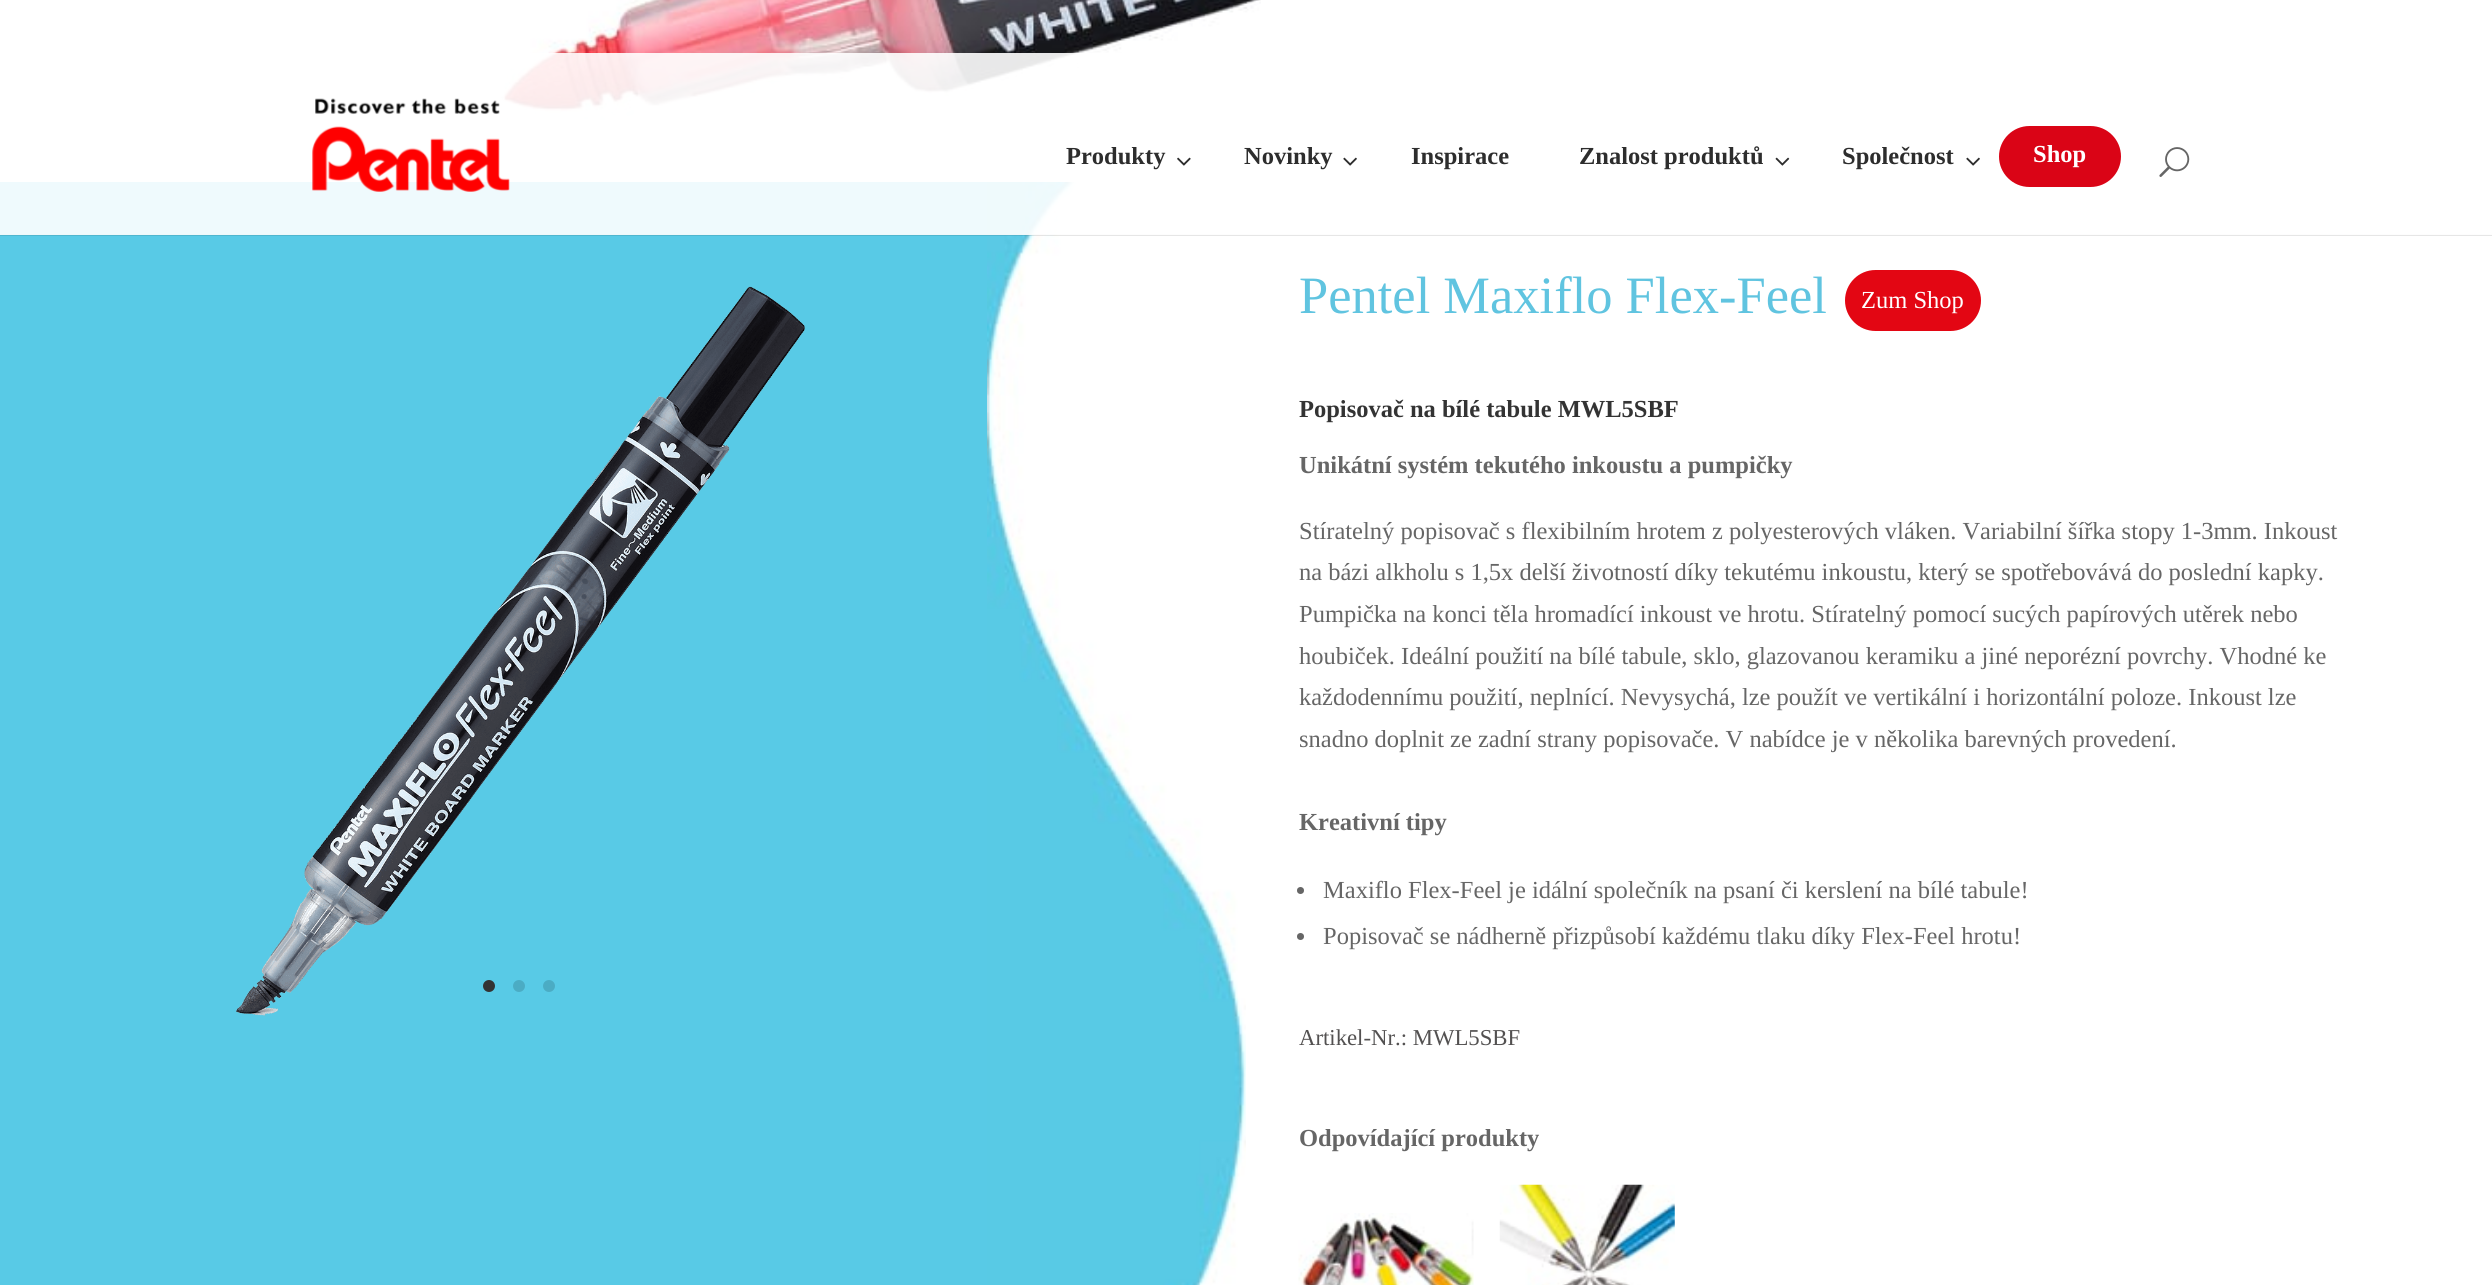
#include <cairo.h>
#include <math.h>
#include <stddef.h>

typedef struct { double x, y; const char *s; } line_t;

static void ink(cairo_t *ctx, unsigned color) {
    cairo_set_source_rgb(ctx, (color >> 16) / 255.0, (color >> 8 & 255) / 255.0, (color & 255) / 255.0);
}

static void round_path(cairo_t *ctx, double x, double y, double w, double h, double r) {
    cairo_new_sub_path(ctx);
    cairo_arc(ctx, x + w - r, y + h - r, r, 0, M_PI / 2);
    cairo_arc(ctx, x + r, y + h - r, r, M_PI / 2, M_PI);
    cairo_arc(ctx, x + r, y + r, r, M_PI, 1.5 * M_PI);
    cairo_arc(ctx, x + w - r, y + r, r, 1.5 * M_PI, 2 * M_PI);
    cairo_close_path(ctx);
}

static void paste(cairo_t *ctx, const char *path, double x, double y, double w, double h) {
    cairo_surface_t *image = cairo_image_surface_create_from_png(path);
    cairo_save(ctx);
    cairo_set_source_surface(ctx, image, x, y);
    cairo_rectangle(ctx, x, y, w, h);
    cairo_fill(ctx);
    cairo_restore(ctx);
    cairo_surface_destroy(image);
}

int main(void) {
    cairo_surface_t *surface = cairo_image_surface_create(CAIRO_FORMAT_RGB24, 2492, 1285);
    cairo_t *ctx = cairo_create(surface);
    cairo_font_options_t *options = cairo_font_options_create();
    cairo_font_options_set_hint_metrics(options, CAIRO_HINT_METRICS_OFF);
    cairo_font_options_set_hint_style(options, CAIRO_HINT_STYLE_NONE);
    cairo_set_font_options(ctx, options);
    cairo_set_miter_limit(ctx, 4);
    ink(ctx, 0xFFFFFF);
    cairo_paint(ctx);
    ink(ctx, 0x58CAE6);
    cairo_rectangle(ctx, 0, 182, 987, 1103);
    cairo_fill(ctx);
    paste(ctx, "media/7.png", 987, 182, 259, 1103);
    cairo_set_source_rgba(ctx, 0, 0, 0, 0.1);
    cairo_rectangle(ctx, 0, 234, 2492, 2);
    cairo_fill(ctx);
    paste(ctx, "media/6.png", 501, 0, 760, 124);
    cairo_set_source_rgba(ctx, 1, 1, 1, 0.9);
    cairo_rectangle(ctx, 0, 53, 2492, 182);
    cairo_fill(ctx);
    paste(ctx, "media/1.png", 312, 98, 198, 94);
    cairo_select_font_face(ctx, "Liberation Serif", CAIRO_FONT_SLANT_NORMAL, CAIRO_FONT_WEIGHT_BOLD);
    cairo_set_font_size(ctx, 24.5);
    ink(ctx, 0x2D2D2D);
    cairo_move_to(ctx, 1066, 164);
    cairo_show_text(ctx, "Produkty");
    paste(ctx, "media/2.png", 1177, 157, 14, 9);
    cairo_move_to(ctx, 1244, 164);
    cairo_show_text(ctx, "Novinky");
    paste(ctx, "media/3.png", 1343, 157, 14, 9);
    cairo_move_to(ctx, 1411, 164);
    cairo_show_text(ctx, "Inspirace");
    cairo_move_to(ctx, 1579, 164);
    cairo_show_text(ctx, "Znalost produktů");
    paste(ctx, "media/4.png", 1775, 157, 15, 9);
    cairo_move_to(ctx, 1842, 164);
    cairo_show_text(ctx, "Společnost");
    paste(ctx, "media/3.png", 1966, 157, 14, 9);
    ink(ctx, 0xDA0416);
    round_path(ctx, 1999, 126, 122, 61, 30.5);
    cairo_fill(ctx);
    ink(ctx, 0xFFFFFF);
    cairo_move_to(ctx, 2033, 162);
    cairo_show_text(ctx, "Shop");
    paste(ctx, "media/5.png", 2159, 147, 31, 30);
    paste(ctx, "media/8.png", 236, 286, 569, 730);
    ink(ctx, 0x333333);
    cairo_arc(ctx, 489, 986, 6, 0, 2 * M_PI);
    cairo_fill(ctx);
    ink(ctx, 0x4BACC4);
    cairo_arc(ctx, 519, 986, 6, 0, 2 * M_PI);
    cairo_fill(ctx);
    cairo_arc(ctx, 549, 986, 6, 0, 2 * M_PI);
    cairo_fill(ctx);
    cairo_select_font_face(ctx, "Liberation Serif", CAIRO_FONT_SLANT_NORMAL, CAIRO_FONT_WEIGHT_NORMAL);
    cairo_set_font_size(ctx, 52.5);
    ink(ctx, 0x60C4E0);
    cairo_move_to(ctx, 1299, 313);
    cairo_show_text(ctx, "Pentel Maxiflo Flex-Feel");
    ink(ctx, 0xE30613);
    round_path(ctx, 1845, 270, 136, 61, 30.5);
    cairo_fill(ctx);
    cairo_set_font_size(ctx, 24.5);
    ink(ctx, 0xFFFFFF);
    cairo_move_to(ctx, 1861, 308);
    cairo_show_text(ctx, "Zum Shop");
    cairo_select_font_face(ctx, "Liberation Serif", CAIRO_FONT_SLANT_NORMAL, CAIRO_FONT_WEIGHT_BOLD);
    ink(ctx, 0x333333);
    cairo_move_to(ctx, 1299, 417);
    cairo_show_text(ctx, "Popisovač na bílé tabule MWL5SBF");
    ink(ctx, 0x666666);
    cairo_move_to(ctx, 1299, 473);
    cairo_show_text(ctx, "Unikátní systém tekutého inkoustu a pumpičky");
    cairo_select_font_face(ctx, "Liberation Serif", CAIRO_FONT_SLANT_NORMAL, CAIRO_FONT_WEIGHT_NORMAL);
    {
        static const line_t items[] = {
            {1299, 539, "Stíratelný popisovač s flexibilním hrotem z polyesterových vláken. Variabilní šířka stopy 1-3mm. Inkoust"},
            {1299, 580, "na bázi alkholu s 1,5x delší životností díky tekutému inkoustu, který se spotřebovává do poslední kapky."},
            {1299, 622, "Pumpička na konci těla hromadící inkoust ve hrotu. Stíratelný pomocí sucých papírových utěrek nebo"},
            {1299, 664, "houbiček. Ideální použití na bílé tabule, sklo, glazovanou keramiku a jiné neporézní povrchy. Vhodné ke"},
            {1299, 705, "každodennímu použití, neplnící. Nevysychá, lze použít ve vertikální i horizontální poloze. Inkoust lze"},
            {1299, 747, "snadno doplnit ze zadní strany popisovače. V nabídce je v několika barevných provedení."},
        };
        for (size_t i = 0; i < sizeof items / sizeof *items; i++) {
            cairo_move_to(ctx, items[i].x, items[i].y);
            cairo_show_text(ctx, items[i].s);
        }
    }
    cairo_select_font_face(ctx, "Liberation Serif", CAIRO_FONT_SLANT_NORMAL, CAIRO_FONT_WEIGHT_BOLD);
    cairo_move_to(ctx, 1299, 830);
    cairo_show_text(ctx, "Kreativní tipy");
    cairo_new_path(ctx);
    cairo_arc(ctx, 1300.5, 890.5, 3.5, 0, 2 * M_PI);
    cairo_fill(ctx);
    cairo_select_font_face(ctx, "Liberation Serif", CAIRO_FONT_SLANT_NORMAL, CAIRO_FONT_WEIGHT_NORMAL);
    cairo_move_to(ctx, 1323, 898);
    cairo_show_text(ctx, "Maxiflo Flex-Feel je idální společník na psaní či kerslení na bílé tabule!");
    cairo_new_path(ctx);
    cairo_arc(ctx, 1300.5, 936.5, 3.5, 0, 2 * M_PI);
    cairo_fill(ctx);
    cairo_move_to(ctx, 1323, 944);
    cairo_show_text(ctx, "Popisovač se nádherně přizpůsobí každému tlaku díky Flex-Feel hrotu!");
    cairo_set_font_size(ctx, 22.75);
    ink(ctx, 0x535151);
    cairo_move_to(ctx, 1299, 1045);
    cairo_show_text(ctx, "Artikel-Nr.: MWL5SBF");
    cairo_select_font_face(ctx, "Liberation Serif", CAIRO_FONT_SLANT_NORMAL, CAIRO_FONT_WEIGHT_BOLD);
    cairo_set_font_size(ctx, 24.5);
    ink(ctx, 0x666666);
    cairo_move_to(ctx, 1299, 1146);
    cairo_show_text(ctx, "Odpovídající produkty");
    paste(ctx, "media/9.png", 1298, 1213, 176, 72);
    paste(ctx, "media/10.png", 1499, 1184, 176, 101);
    cairo_surface_write_to_png(surface, "image.png");
    cairo_font_options_destroy(options);
    cairo_destroy(ctx);
    cairo_surface_destroy(surface);
    return 0;
}
